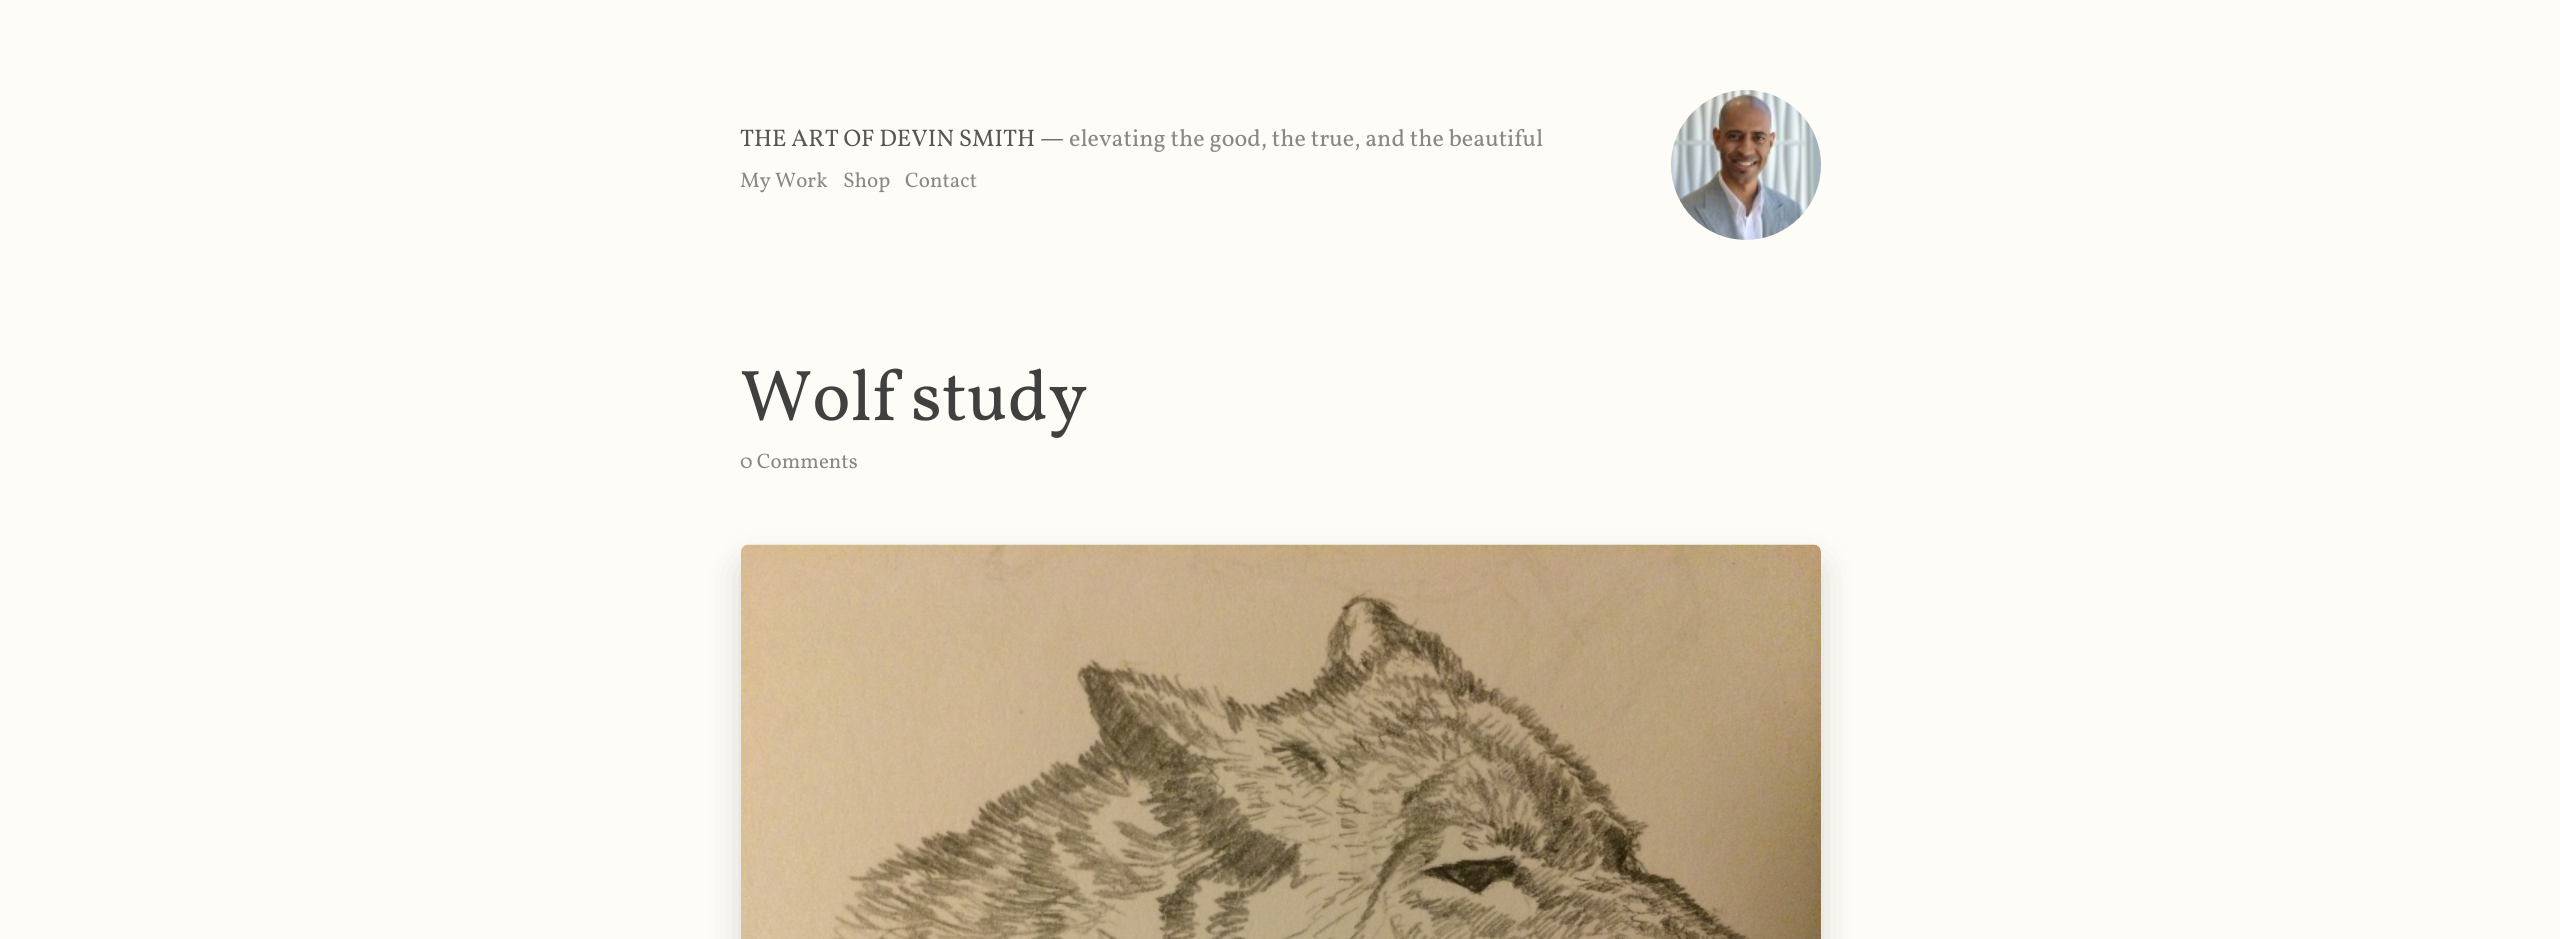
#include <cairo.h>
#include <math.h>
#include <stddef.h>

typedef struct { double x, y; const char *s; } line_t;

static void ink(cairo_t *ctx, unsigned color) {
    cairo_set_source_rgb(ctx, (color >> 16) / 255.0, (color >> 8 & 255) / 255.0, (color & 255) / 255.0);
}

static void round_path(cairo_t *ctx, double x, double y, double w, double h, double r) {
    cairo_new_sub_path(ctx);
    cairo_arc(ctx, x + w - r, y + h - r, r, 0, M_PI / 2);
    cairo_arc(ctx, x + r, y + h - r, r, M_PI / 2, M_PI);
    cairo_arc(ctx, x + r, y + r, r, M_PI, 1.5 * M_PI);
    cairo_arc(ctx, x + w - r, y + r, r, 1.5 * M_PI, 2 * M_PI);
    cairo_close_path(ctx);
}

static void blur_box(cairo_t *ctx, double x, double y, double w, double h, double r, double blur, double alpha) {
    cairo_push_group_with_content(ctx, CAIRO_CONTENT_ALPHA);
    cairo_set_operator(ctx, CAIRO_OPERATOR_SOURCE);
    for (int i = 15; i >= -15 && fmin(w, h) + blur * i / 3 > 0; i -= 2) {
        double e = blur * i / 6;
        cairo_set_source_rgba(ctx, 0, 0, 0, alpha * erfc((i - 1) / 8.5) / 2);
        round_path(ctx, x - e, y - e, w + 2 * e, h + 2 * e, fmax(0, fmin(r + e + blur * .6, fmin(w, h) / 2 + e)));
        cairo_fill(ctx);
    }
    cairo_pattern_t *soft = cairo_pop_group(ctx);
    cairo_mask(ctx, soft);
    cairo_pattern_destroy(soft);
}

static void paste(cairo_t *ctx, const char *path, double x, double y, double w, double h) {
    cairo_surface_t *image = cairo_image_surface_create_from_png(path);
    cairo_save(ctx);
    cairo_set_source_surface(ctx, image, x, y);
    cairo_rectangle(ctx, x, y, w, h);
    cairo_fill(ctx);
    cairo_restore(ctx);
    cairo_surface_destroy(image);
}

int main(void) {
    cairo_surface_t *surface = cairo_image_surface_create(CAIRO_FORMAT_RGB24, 2560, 939);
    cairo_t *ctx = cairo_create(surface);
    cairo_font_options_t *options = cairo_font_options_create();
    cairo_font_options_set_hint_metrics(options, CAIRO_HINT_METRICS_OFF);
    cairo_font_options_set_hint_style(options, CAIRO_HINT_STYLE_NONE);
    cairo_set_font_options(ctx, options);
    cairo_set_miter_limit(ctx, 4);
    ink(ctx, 0xFDFCF6);
    cairo_paint(ctx);
    cairo_select_font_face(ctx, "Vollkorn", CAIRO_FONT_SLANT_NORMAL, CAIRO_FONT_WEIGHT_NORMAL);
    cairo_set_font_size(ctx, 24);
    ink(ctx, 0x565656);
    cairo_move_to(ctx, 740, 146);
    cairo_show_text(ctx, "THE ART OF DEVIN SMITH —");
    ink(ctx, 0x888888);
    cairo_move_to(ctx, 1069, 146);
    cairo_show_text(ctx, "elevating the good, the true, and the beautiful");
    paste(ctx, "media/1.png", 1671, 90, 150, 150);
    cairo_set_font_size(ctx, 21);
    {
        static const line_t items[] = {
            {740, 187, "My Work"},
            {843, 187, "Shop"},
            {905, 187, "Contact"},
        };
        for (size_t i = 0; i < sizeof items / sizeof *items; i++) {
            cairo_move_to(ctx, items[i].x, items[i].y);
            cairo_show_text(ctx, items[i].s);
        }
    }
    cairo_set_font_size(ctx, 72);
    ink(ctx, 0x404040);
    cairo_move_to(ctx, 740, 420);
    cairo_show_text(ctx, "Wolf study");
    cairo_set_font_size(ctx, 21);
    ink(ctx, 0x888888);
    cairo_move_to(ctx, 740, 468);
    cairo_show_text(ctx, "0 Comments");
    ink(ctx, 0x000000);
    blur_box(ctx, 741, 563, 1080, 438, 8, 18, 0.15);
    paste(ctx, "media/2.png", 741, 544, 1080, 395);
    cairo_surface_write_to_png(surface, "image.png");
    cairo_font_options_destroy(options);
    cairo_destroy(ctx);
    cairo_surface_destroy(surface);
    return 0;
}
